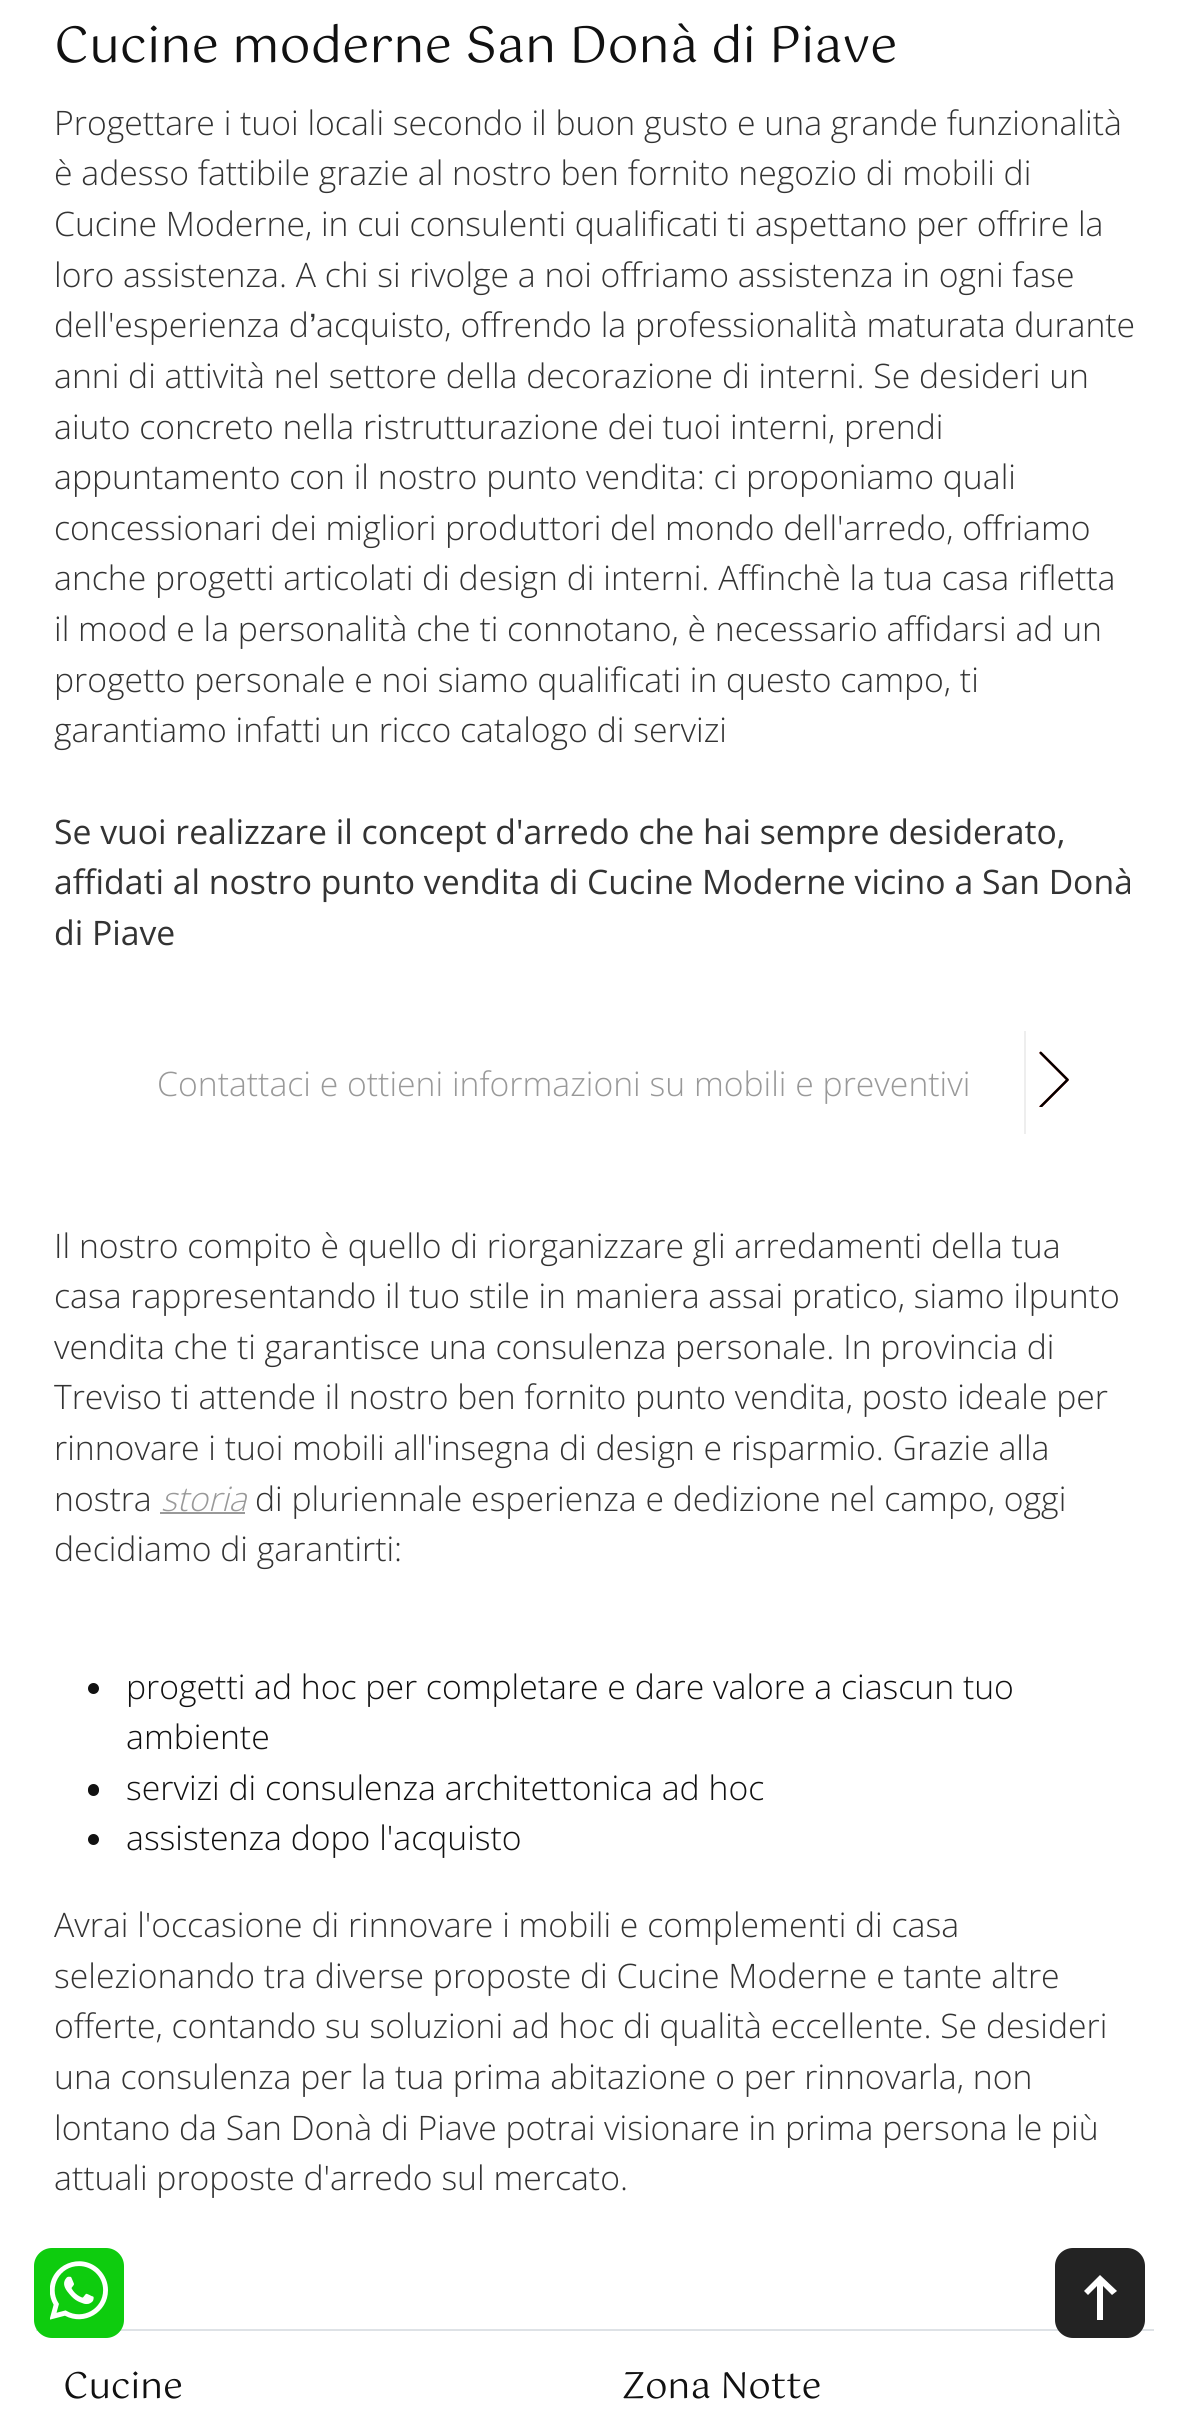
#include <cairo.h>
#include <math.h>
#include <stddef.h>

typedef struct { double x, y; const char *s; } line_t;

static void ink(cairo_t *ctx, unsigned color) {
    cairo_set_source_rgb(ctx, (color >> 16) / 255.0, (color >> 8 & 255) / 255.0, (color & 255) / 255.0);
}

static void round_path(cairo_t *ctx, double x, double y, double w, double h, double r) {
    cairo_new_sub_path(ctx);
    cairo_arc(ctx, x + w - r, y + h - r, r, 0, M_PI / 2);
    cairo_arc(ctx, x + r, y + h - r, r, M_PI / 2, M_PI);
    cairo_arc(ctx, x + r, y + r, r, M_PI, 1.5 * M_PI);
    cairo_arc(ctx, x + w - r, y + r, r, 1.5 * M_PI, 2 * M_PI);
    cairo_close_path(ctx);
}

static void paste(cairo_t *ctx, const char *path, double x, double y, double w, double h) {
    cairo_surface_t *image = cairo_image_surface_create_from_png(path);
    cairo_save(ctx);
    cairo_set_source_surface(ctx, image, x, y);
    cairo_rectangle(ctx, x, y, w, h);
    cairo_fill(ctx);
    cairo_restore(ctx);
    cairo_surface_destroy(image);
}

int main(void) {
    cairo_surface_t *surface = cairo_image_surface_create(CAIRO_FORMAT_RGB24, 1189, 2427);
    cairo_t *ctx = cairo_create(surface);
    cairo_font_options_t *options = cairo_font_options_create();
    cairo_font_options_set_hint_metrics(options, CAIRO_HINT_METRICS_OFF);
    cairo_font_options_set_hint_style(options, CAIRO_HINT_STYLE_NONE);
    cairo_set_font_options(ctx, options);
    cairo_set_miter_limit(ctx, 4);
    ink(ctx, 0xFFFFFF);
    cairo_paint(ctx);
    cairo_select_font_face(ctx, "Gotu", CAIRO_FONT_SLANT_NORMAL, CAIRO_FONT_WEIGHT_NORMAL);
    cairo_set_font_size(ctx, 49.5);
    ink(ctx, 0x111111);
    cairo_move_to(ctx, 54, 62);
    cairo_show_text(ctx, "Cucine moderne San Donà di Piave");
    cairo_select_font_face(ctx, "Open Sans Light", CAIRO_FONT_SLANT_NORMAL, CAIRO_FONT_WEIGHT_NORMAL);
    cairo_set_font_size(ctx, 33.75);
    ink(ctx, 0x333333);
    {
        static const line_t items[] = {
            {54, 135, "Progettare i tuoi locali secondo il buon gusto e una grande funzionalità"},
            {54, 185, "è adesso fattibile grazie al nostro ben fornito negozio di mobili di"},
            {54, 236, "Cucine Moderne, in cui consulenti qualificati ti aspettano per offrire la"},
            {54, 287, "loro assistenza. A chi si rivolge a noi offriamo assistenza in ogni fase"},
            {54, 337, "dell'esperienza d"},
        };
        for (size_t i = 0; i < sizeof items / sizeof *items; i++) {
            cairo_move_to(ctx, items[i].x, items[i].y);
            cairo_show_text(ctx, items[i].s);
        }
    }
    cairo_select_font_face(ctx, "Liberation Sans", CAIRO_FONT_SLANT_NORMAL, CAIRO_FONT_WEIGHT_NORMAL);
    cairo_move_to(ctx, 309, 337);
    cairo_show_text(ctx, "’");
    cairo_select_font_face(ctx, "Open Sans Light", CAIRO_FONT_SLANT_NORMAL, CAIRO_FONT_WEIGHT_NORMAL);
    {
        static const line_t items[] = {
            {316, 337, "acquisto, offrendo la professionalità maturata durante"},
            {54, 388, "anni di attività nel settore della decorazione di interni. Se desideri un"},
            {54, 439, "aiuto concreto nella ristrutturazione dei tuoi interni, prendi"},
            {54, 489, "appuntamento con il nostro punto vendita: ci proponiamo quali"},
            {54, 540, "concessionari dei migliori produttori del mondo dell'arredo, offriamo"},
            {54, 590, "anche progetti articolati di design di interni. Affinchè la tua casa rifletta"},
            {54, 641, "il mood e la personalità che ti connotano, è necessario affidarsi ad un"},
            {54, 692, "progetto personale e noi siamo qualificati in questo campo, ti"},
            {54, 742, "garantiamo infatti un ricco catalogo di servizi"},
        };
        for (size_t i = 0; i < sizeof items / sizeof *items; i++) {
            cairo_move_to(ctx, items[i].x, items[i].y);
            cairo_show_text(ctx, items[i].s);
        }
    }
    cairo_select_font_face(ctx, "Open Sans", CAIRO_FONT_SLANT_NORMAL, CAIRO_FONT_WEIGHT_NORMAL);
    {
        static const line_t items[] = {
            {54, 844, "Se vuoi realizzare il concept d'arredo che hai sempre desiderato,"},
            {54, 894, "affidati al nostro punto vendita di Cucine Moderne vicino a San Donà"},
            {54, 945, "di Piave"},
        };
        for (size_t i = 0; i < sizeof items / sizeof *items; i++) {
            cairo_move_to(ctx, items[i].x, items[i].y);
            cairo_show_text(ctx, items[i].s);
        }
    }
    cairo_select_font_face(ctx, "Open Sans Light", CAIRO_FONT_SLANT_NORMAL, CAIRO_FONT_WEIGHT_NORMAL);
    ink(ctx, 0x999999);
    cairo_move_to(ctx, 157, 1096);
    cairo_show_text(ctx, "Contattaci e ottieni informazioni su mobili e preventivi");
    ink(ctx, 0xEEEEEE);
    cairo_rectangle(ctx, 1024, 1031, 2, 103);
    cairo_fill(ctx);
    paste(ctx, "media/1.png", 1039, 1051, 30, 56);
    ink(ctx, 0x333333);
    {
        static const line_t items[] = {
            {54, 1258, "Il nostro compito è quello di riorganizzare gli arredamenti della tua"},
            {54, 1308, "casa rappresentando il tuo stile in maniera assai pratico, siamo ilpunto"},
            {54, 1359, "vendita che ti garantisce una consulenza personale. In provincia di"},
            {54, 1409, "Treviso ti attende il nostro ben fornito punto vendita, posto ideale per"},
            {54, 1460, "rinnovare i tuoi mobili all'insegna di design e risparmio. Grazie alla"},
            {54, 1511, "nostra"},
        };
        for (size_t i = 0; i < sizeof items / sizeof *items; i++) {
            cairo_move_to(ctx, items[i].x, items[i].y);
            cairo_show_text(ctx, items[i].s);
        }
    }
    cairo_select_font_face(ctx, "Open Sans Light", CAIRO_FONT_SLANT_ITALIC, CAIRO_FONT_WEIGHT_NORMAL);
    ink(ctx, 0x999999);
    cairo_move_to(ctx, 161, 1511);
    cairo_show_text(ctx, "storia");
    cairo_rectangle(ctx, 160, 1512, 85, 2);
    cairo_fill(ctx);
    cairo_select_font_face(ctx, "Open Sans Light", CAIRO_FONT_SLANT_NORMAL, CAIRO_FONT_WEIGHT_NORMAL);
    ink(ctx, 0x333333);
    cairo_move_to(ctx, 255, 1511);
    cairo_show_text(ctx, "di pluriennale esperienza e dedizione nel campo, oggi");
    cairo_move_to(ctx, 54, 1561);
    cairo_show_text(ctx, "decidiamo di garantirti:");
    ink(ctx, 0x111111);
    cairo_new_path(ctx);
    cairo_arc(ctx, 93.5, 1688.5, 5.5, 0, 2 * M_PI);
    cairo_fill(ctx);
    cairo_move_to(ctx, 126, 1699);
    cairo_show_text(ctx, "progetti ad hoc per completare e dare valore a ciascun tuo");
    cairo_move_to(ctx, 126, 1749);
    cairo_show_text(ctx, "ambiente");
    round_path(ctx, 88, 1784, 11, 12, 5.5);
    cairo_fill(ctx);
    cairo_move_to(ctx, 126, 1800);
    cairo_show_text(ctx, "servizi di consulenza architettonica ad hoc");
    cairo_new_path(ctx);
    cairo_arc(ctx, 93.5, 1839.5, 5.5, 0, 2 * M_PI);
    cairo_fill(ctx);
    cairo_move_to(ctx, 126, 1850);
    cairo_show_text(ctx, "assistenza dopo l'acquisto");
    ink(ctx, 0x333333);
    {
        static const line_t items[] = {
            {54, 1937, "Avrai l'occasione di rinnovare i mobili e complementi di casa"},
            {54, 1988, "selezionando tra diverse proposte di Cucine Moderne e tante altre"},
            {54, 2038, "offerte, contando su soluzioni ad hoc di qualità eccellente. Se desideri"},
            {54, 2089, "una consulenza per la tua prima abitazione o per rinnovarla, non"},
            {54, 2140, "lontano da San Donà di Piave potrai visionare in prima persona le più"},
            {54, 2190, "attuali proposte d'arredo sul mercato."},
        };
        for (size_t i = 0; i < sizeof items / sizeof *items; i++) {
            cairo_move_to(ctx, items[i].x, items[i].y);
            cairo_show_text(ctx, items[i].s);
        }
    }
    ink(ctx, 0xDEE2E6);
    cairo_rectangle(ctx, 36, 2329, 1118, 2);
    cairo_fill(ctx);
    ink(ctx, 0x0ECC0E);
    round_path(ctx, 34, 2248, 90, 90, 18);
    cairo_fill(ctx);
    paste(ctx, "media/2.png", 50, 2261, 58, 59);
    ink(ctx, 0x232323);
    round_path(ctx, 1055, 2248, 90, 90, 18);
    cairo_fill(ctx);
    ink(ctx, 0xFFFFFF);
    cairo_new_path(ctx);
    cairo_move_to(ctx, 1117, 2291);
    cairo_line_to(ctx, 1100, 2275);
    cairo_line_to(ctx, 1084, 2291);
    cairo_line_to(ctx, 1088, 2295);
    cairo_line_to(ctx, 1097, 2286);
    cairo_line_to(ctx, 1097, 2320);
    cairo_line_to(ctx, 1103, 2320);
    cairo_line_to(ctx, 1103, 2286);
    cairo_line_to(ctx, 1112, 2295);
    cairo_close_path(ctx);
    cairo_fill(ctx);
    cairo_select_font_face(ctx, "Gotu", CAIRO_FONT_SLANT_NORMAL, CAIRO_FONT_WEIGHT_NORMAL);
    cairo_set_font_size(ctx, 36);
    ink(ctx, 0x111111);
    cairo_move_to(ctx, 63, 2398);
    cairo_show_text(ctx, "Cucine");
    cairo_move_to(ctx, 622, 2398);
    cairo_show_text(ctx, "Zona Notte");
    cairo_surface_write_to_png(surface, "image.png");
    cairo_font_options_destroy(options);
    cairo_destroy(ctx);
    cairo_surface_destroy(surface);
    return 0;
}
